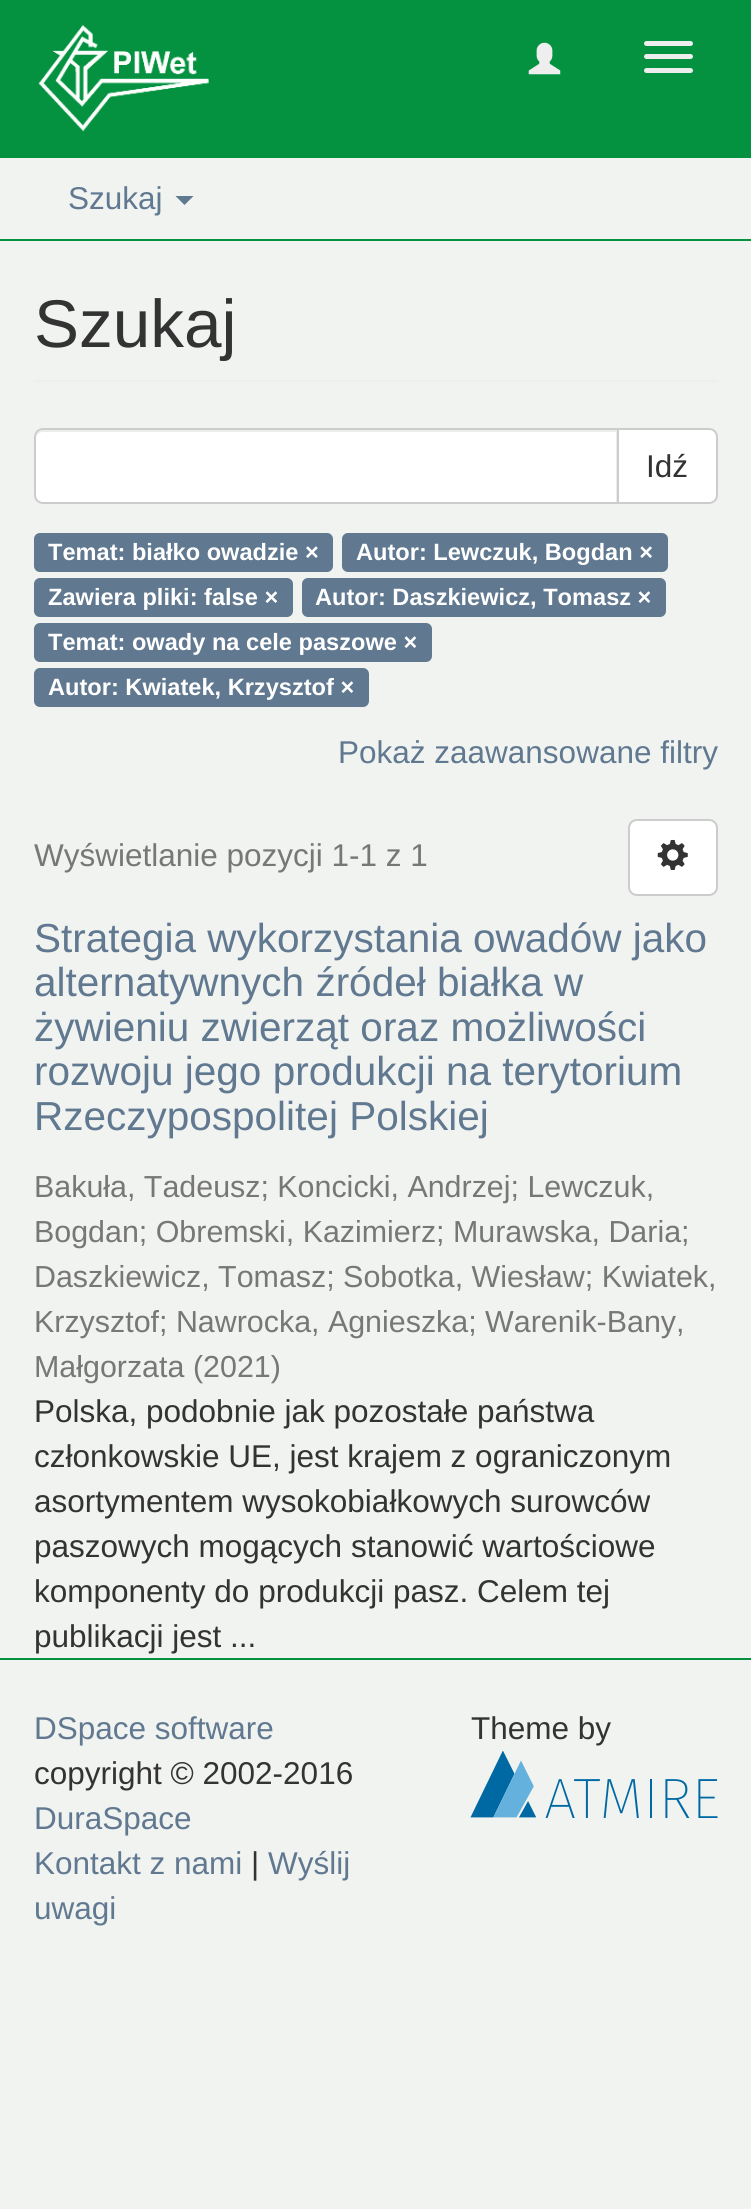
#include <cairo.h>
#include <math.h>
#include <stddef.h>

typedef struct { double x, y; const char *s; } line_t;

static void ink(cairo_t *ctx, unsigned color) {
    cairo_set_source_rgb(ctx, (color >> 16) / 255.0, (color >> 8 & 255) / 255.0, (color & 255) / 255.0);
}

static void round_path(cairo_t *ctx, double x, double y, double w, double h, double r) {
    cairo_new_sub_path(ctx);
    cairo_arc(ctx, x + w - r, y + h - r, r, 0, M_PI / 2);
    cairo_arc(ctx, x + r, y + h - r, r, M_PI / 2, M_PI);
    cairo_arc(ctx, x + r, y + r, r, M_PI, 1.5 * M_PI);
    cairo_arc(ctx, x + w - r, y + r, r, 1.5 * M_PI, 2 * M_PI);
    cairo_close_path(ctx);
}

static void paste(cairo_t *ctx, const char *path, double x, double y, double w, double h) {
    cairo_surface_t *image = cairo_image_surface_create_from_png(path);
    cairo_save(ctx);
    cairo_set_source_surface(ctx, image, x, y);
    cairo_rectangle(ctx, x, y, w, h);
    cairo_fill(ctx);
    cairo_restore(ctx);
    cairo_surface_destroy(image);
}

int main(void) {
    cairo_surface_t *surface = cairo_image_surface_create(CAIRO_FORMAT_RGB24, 751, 2209);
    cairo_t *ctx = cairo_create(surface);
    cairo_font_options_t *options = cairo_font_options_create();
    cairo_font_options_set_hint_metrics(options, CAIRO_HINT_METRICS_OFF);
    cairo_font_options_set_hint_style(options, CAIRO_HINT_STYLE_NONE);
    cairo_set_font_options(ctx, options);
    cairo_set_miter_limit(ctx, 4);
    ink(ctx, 0xF1F3F0);
    cairo_paint(ctx);
    ink(ctx, 0x049241);
    cairo_rectangle(ctx, 0, 0, 751, 158);
    cairo_fill(ctx);
    paste(ctx, "media/1.png", 38, 25, 171, 107);
    paste(ctx, "media/2.png", 528, 42, 33, 33);
    ink(ctx, 0xEEEEEE);
    round_path(ctx, 644, 41, 49, 5, 2.5);
    cairo_fill(ctx);
    round_path(ctx, 644, 54, 49, 5, 2.5);
    cairo_fill(ctx);
    round_path(ctx, 644, 68, 49, 5, 2.5);
    cairo_fill(ctx);
    ink(ctx, 0x049241);
    cairo_rectangle(ctx, 0, 239, 751, 2);
    cairo_fill(ctx);
    cairo_select_font_face(ctx, "Liberation Sans", CAIRO_FONT_SLANT_NORMAL, CAIRO_FONT_WEIGHT_NORMAL);
    cairo_set_font_size(ctx, 31.5);
    ink(ctx, 0x607890);
    cairo_move_to(ctx, 68, 209);
    cairo_show_text(ctx, "Szukaj");
    cairo_new_path(ctx);
    cairo_move_to(ctx, 175.5, 196);
    cairo_line_to(ctx, 193.5, 196);
    cairo_line_to(ctx, 184.5, 205);
    cairo_close_path(ctx);
    cairo_fill(ctx);
    ink(ctx, 0xEEEEEE);
    cairo_rectangle(ctx, 34, 380, 684, 2);
    cairo_fill(ctx);
    cairo_set_font_size(ctx, 67.5);
    ink(ctx, 0x333333);
    cairo_move_to(ctx, 34, 347);
    cairo_show_text(ctx, "Szukaj");
    ink(ctx, 0xFFFFFF);
    cairo_new_path(ctx);
    cairo_move_to(ctx, 618, 429);
    cairo_line_to(ctx, 709, 429);
    cairo_curve_to(ctx, 713.5, 429, 717, 432.5, 717, 437);
    cairo_line_to(ctx, 717, 495);
    cairo_curve_to(ctx, 717, 499.5, 713.5, 503, 709, 503);
    cairo_line_to(ctx, 618, 503);
    cairo_close_path(ctx);
    cairo_fill_preserve(ctx);
    ink(ctx, 0xCCCCCC);
    cairo_stroke(ctx);
    ink(ctx, 0xFFFFFF);
    cairo_new_path(ctx);
    cairo_move_to(ctx, 43, 428);
    cairo_line_to(ctx, 619, 428);
    cairo_line_to(ctx, 619, 504);
    cairo_line_to(ctx, 43, 504);
    cairo_curve_to(ctx, 38, 504, 34, 500, 34, 495);
    cairo_line_to(ctx, 34, 437);
    cairo_curve_to(ctx, 34, 432, 38, 428, 43, 428);
    cairo_close_path(ctx);
    cairo_fill(ctx);
    ink(ctx, 0xECECEC);
    cairo_new_path(ctx);
    cairo_move_to(ctx, 43, 432);
    cairo_line_to(ctx, 616, 432);
    cairo_line_to(ctx, 616, 502);
    cairo_line_to(ctx, 617, 502);
    cairo_line_to(ctx, 617, 430);
    cairo_line_to(ctx, 43, 430);
    cairo_curve_to(ctx, 39, 430, 36, 433, 36, 437);
    cairo_line_to(ctx, 36, 439);
    cairo_curve_to(ctx, 36, 435, 39, 432, 43, 432);
    cairo_close_path(ctx);
    cairo_fill(ctx);
    cairo_new_path(ctx);
    cairo_move_to(ctx, 43, 429);
    cairo_line_to(ctx, 618, 429);
    cairo_line_to(ctx, 618, 503);
    cairo_line_to(ctx, 43, 503);
    cairo_curve_to(ctx, 38.5, 503, 35, 499.5, 35, 495);
    cairo_line_to(ctx, 35, 437);
    cairo_curve_to(ctx, 35, 432.5, 38.5, 429, 43, 429);
    cairo_close_path(ctx);
    ink(ctx, 0xCCCCCC);
    cairo_stroke(ctx);
    cairo_set_font_size(ctx, 31.5);
    ink(ctx, 0x333333);
    cairo_move_to(ctx, 646, 477);
    cairo_show_text(ctx, "Idź");
    ink(ctx, 0x607890);
    round_path(ctx, 34, 533, 299, 39, 6);
    cairo_fill(ctx);
    cairo_select_font_face(ctx, "Liberation Sans", CAIRO_FONT_SLANT_NORMAL, CAIRO_FONT_WEIGHT_BOLD);
    cairo_set_font_size(ctx, 23.6);
    ink(ctx, 0xFFFFFF);
    cairo_move_to(ctx, 48, 560);
    cairo_show_text(ctx, "Temat: białko owadzie ×");
    ink(ctx, 0x607890);
    round_path(ctx, 342, 533, 326, 39, 6);
    cairo_fill(ctx);
    ink(ctx, 0xFFFFFF);
    cairo_move_to(ctx, 356, 560);
    cairo_show_text(ctx, "Autor: Lewczuk, Bogdan ×");
    ink(ctx, 0x607890);
    round_path(ctx, 34, 578, 259, 39, 6);
    cairo_fill(ctx);
    ink(ctx, 0xFFFFFF);
    cairo_move_to(ctx, 48, 605);
    cairo_show_text(ctx, "Zawiera pliki: false ×");
    ink(ctx, 0x607890);
    round_path(ctx, 302, 578, 364, 39, 6);
    cairo_fill(ctx);
    ink(ctx, 0xFFFFFF);
    cairo_move_to(ctx, 315, 605);
    cairo_show_text(ctx, "Autor: Daszkiewicz, Tomasz ×");
    ink(ctx, 0x607890);
    round_path(ctx, 34, 623, 398, 39, 6);
    cairo_fill(ctx);
    ink(ctx, 0xFFFFFF);
    cairo_move_to(ctx, 48, 650);
    cairo_show_text(ctx, "Temat: owady na cele paszowe ×");
    ink(ctx, 0x607890);
    round_path(ctx, 34, 668, 335, 39, 6);
    cairo_fill(ctx);
    ink(ctx, 0xFFFFFF);
    cairo_move_to(ctx, 48, 695);
    cairo_show_text(ctx, "Autor: Kwiatek, Krzysztof ×");
    cairo_select_font_face(ctx, "Liberation Sans", CAIRO_FONT_SLANT_NORMAL, CAIRO_FONT_WEIGHT_NORMAL);
    cairo_set_font_size(ctx, 31.5);
    ink(ctx, 0x607890);
    cairo_move_to(ctx, 338, 763);
    cairo_show_text(ctx, "Pokaż zaawansowane filtry");
    ink(ctx, 0x777777);
    cairo_move_to(ctx, 34, 866);
    cairo_show_text(ctx, "Wyświetlanie pozycji 1-1 z 1");
    ink(ctx, 0xFFFFFF);
    round_path(ctx, 629, 820, 88, 75, 8);
    cairo_fill_preserve(ctx);
    ink(ctx, 0xCCCCCC);
    cairo_stroke(ctx);
    paste(ctx, "media/3.png", 657, 839, 31, 31);
    cairo_set_font_size(ctx, 40.5);
    ink(ctx, 0x607890);
    {
        static const line_t items[] = {
            {34, 952, "Strategia wykorzystania owadów jako"},
            {34, 996, "alternatywnych źródeł białka w"},
            {34, 1041, "żywieniu zwierząt oraz możliwości"},
            {34, 1085, "rozwoju jego produkcji na terytorium"},
            {34, 1130, "Rzeczypospolitej Polskiej"},
        };
        for (size_t i = 0; i < sizeof items / sizeof *items; i++) {
            cairo_move_to(ctx, items[i].x, items[i].y);
            cairo_show_text(ctx, items[i].s);
        }
    }
    cairo_set_font_size(ctx, 30.4);
    ink(ctx, 0x777777);
    {
        static const line_t items[] = {
            {34, 1197, "Bakuła, Tadeusz; Koncicki, Andrzej; Lewczuk,"},
            {34, 1242, "Bogdan; Obremski, Kazimierz; Murawska, Daria;"},
            {34, 1287, "Daszkiewicz, Tomasz; Sobotka, Wiesław; Kwiatek,"},
            {34, 1332, "Krzysztof; Nawrocka, Agnieszka; Warenik-Bany,"},
            {34, 1377, "Małgorzata"},
            {193, 1377, "(2021)"},
        };
        for (size_t i = 0; i < sizeof items / sizeof *items; i++) {
            cairo_move_to(ctx, items[i].x, items[i].y);
            cairo_show_text(ctx, items[i].s);
        }
    }
    cairo_set_font_size(ctx, 31.5);
    ink(ctx, 0x333333);
    {
        static const line_t items[] = {
            {34, 1422, "Polska, podobnie jak pozostałe państwa"},
            {34, 1467, "członkowskie UE, jest krajem z ograniczonym"},
            {34, 1512, "asortymentem wysokobiałkowych surowców"},
            {34, 1557, "paszowych mogących stanowić wartościowe"},
            {34, 1602, "komponenty do produkcji pasz. Celem tej"},
            {34, 1647, "publikacji jest ..."},
        };
        for (size_t i = 0; i < sizeof items / sizeof *items; i++) {
            cairo_move_to(ctx, items[i].x, items[i].y);
            cairo_show_text(ctx, items[i].s);
        }
    }
    ink(ctx, 0x049241);
    cairo_rectangle(ctx, 0, 1658, 751, 2);
    cairo_fill(ctx);
    ink(ctx, 0x607890);
    cairo_move_to(ctx, 34, 1739);
    cairo_show_text(ctx, "DSpace software");
    ink(ctx, 0x333333);
    cairo_move_to(ctx, 34, 1784);
    cairo_show_text(ctx, "copyright © 2002-2016");
    ink(ctx, 0x607890);
    cairo_move_to(ctx, 34, 1829);
    cairo_show_text(ctx, "DuraSpace");
    cairo_move_to(ctx, 34, 1874);
    cairo_show_text(ctx, "Kontakt z nami");
    ink(ctx, 0x333333);
    cairo_move_to(ctx, 251, 1874);
    cairo_show_text(ctx, "|");
    ink(ctx, 0x607890);
    cairo_move_to(ctx, 268, 1874);
    cairo_show_text(ctx, "Wyślij");
    cairo_move_to(ctx, 34, 1919);
    cairo_show_text(ctx, "uwagi");
    ink(ctx, 0x333333);
    cairo_move_to(ctx, 471, 1739);
    cairo_show_text(ctx, "Theme by");
    paste(ctx, "media/4.png", 470, 1751, 248, 67);
    cairo_surface_write_to_png(surface, "image.png");
    cairo_font_options_destroy(options);
    cairo_destroy(ctx);
    cairo_surface_destroy(surface);
    return 0;
}
